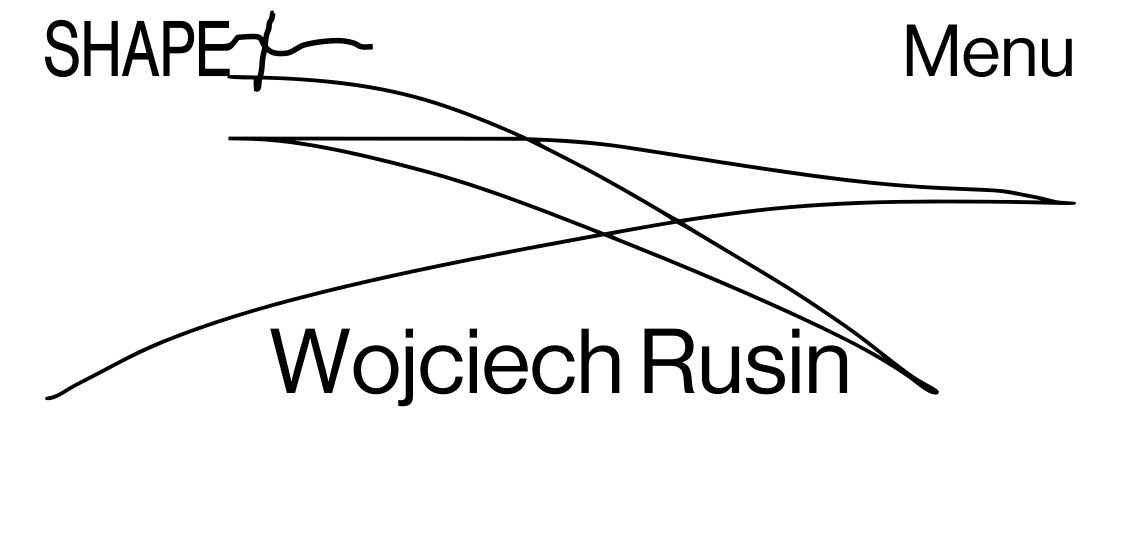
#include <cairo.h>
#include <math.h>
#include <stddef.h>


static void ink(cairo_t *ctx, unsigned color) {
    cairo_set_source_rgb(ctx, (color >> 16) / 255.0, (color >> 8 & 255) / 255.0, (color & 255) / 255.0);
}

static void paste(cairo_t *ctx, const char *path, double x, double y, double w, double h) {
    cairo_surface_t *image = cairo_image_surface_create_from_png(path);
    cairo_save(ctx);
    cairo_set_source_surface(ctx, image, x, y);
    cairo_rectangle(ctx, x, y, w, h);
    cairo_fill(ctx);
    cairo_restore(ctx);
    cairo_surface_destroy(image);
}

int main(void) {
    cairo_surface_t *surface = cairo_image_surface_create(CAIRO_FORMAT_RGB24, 1121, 549);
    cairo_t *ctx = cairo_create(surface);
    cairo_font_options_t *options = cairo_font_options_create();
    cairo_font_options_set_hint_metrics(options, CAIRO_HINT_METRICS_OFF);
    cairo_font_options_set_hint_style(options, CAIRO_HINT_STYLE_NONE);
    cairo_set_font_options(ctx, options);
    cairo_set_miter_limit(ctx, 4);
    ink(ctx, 0xFFFFFF);
    cairo_paint(ctx);
    paste(ctx, "media/1.png", 45, 75, 1031, 326);
    paste(ctx, "media/2.png", 45, 10, 328, 82);
    cairo_select_font_face(ctx, "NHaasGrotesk", CAIRO_FONT_SLANT_NORMAL, CAIRO_FONT_WEIGHT_NORMAL);
    cairo_set_font_size(ctx, 72);
    ink(ctx, 0x000000);
    cairo_move_to(ctx, 902, 76);
    cairo_show_text(ctx, "Menu");
    cairo_set_font_size(ctx, 90);
    cairo_move_to(ctx, 269, 393);
    cairo_show_text(ctx, "Wojciech Rusin");
    cairo_surface_write_to_png(surface, "image.png");
    cairo_font_options_destroy(options);
    cairo_destroy(ctx);
    cairo_surface_destroy(surface);
    return 0;
}
